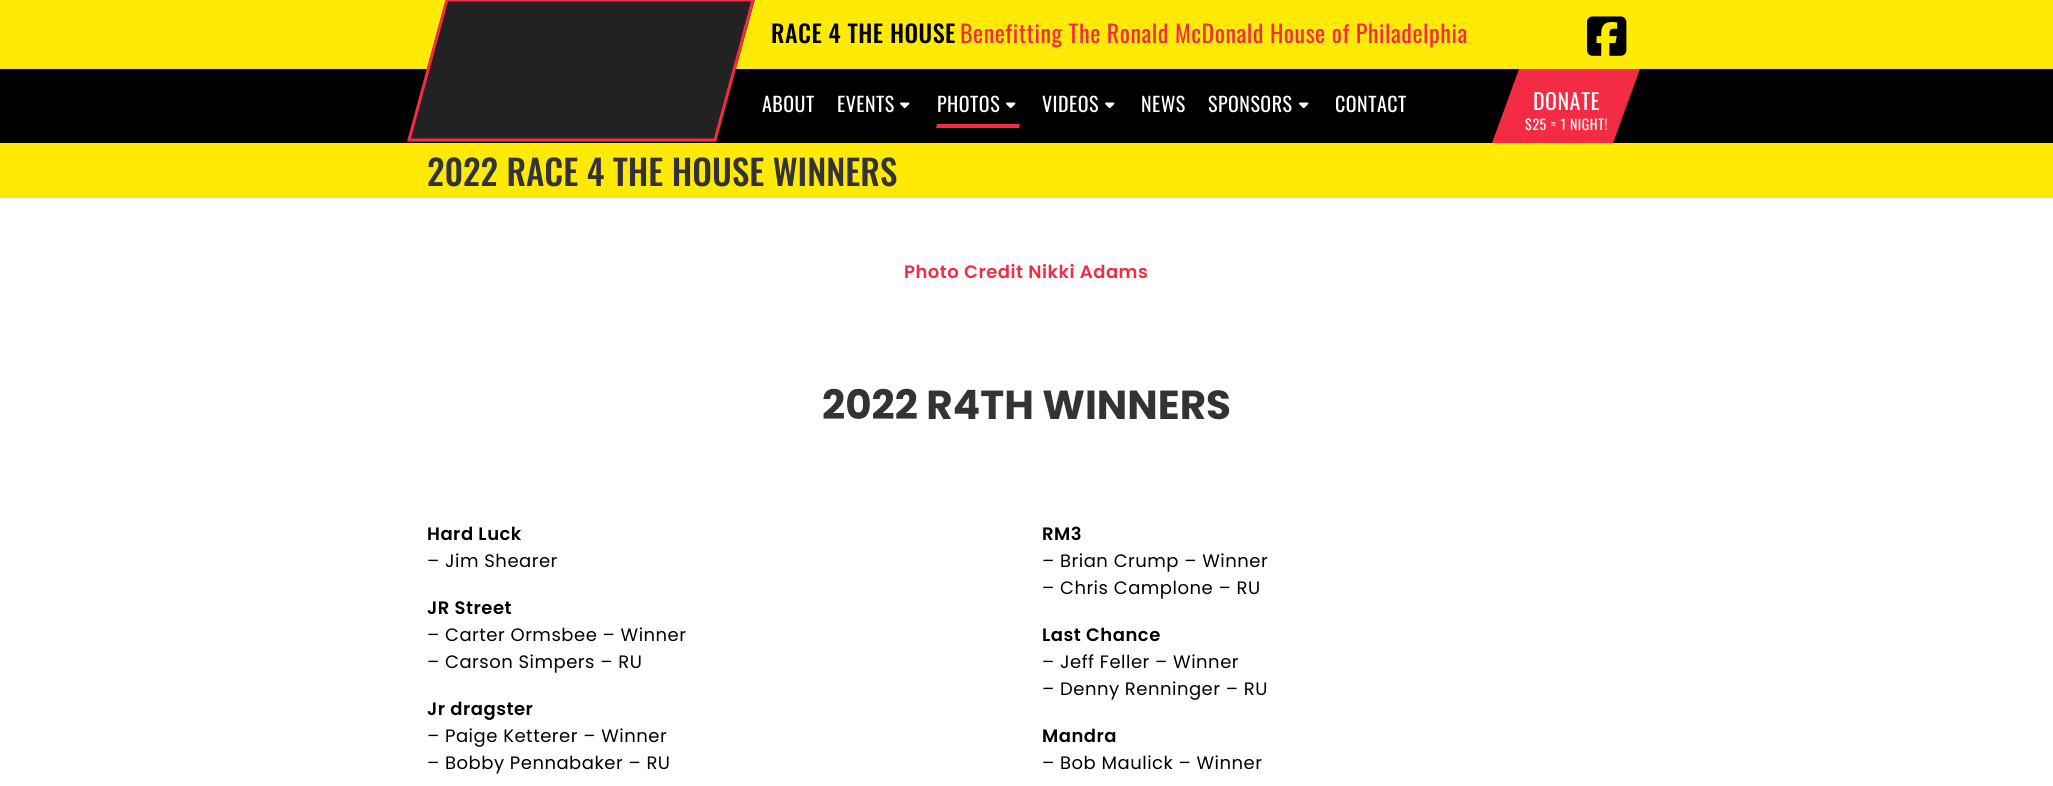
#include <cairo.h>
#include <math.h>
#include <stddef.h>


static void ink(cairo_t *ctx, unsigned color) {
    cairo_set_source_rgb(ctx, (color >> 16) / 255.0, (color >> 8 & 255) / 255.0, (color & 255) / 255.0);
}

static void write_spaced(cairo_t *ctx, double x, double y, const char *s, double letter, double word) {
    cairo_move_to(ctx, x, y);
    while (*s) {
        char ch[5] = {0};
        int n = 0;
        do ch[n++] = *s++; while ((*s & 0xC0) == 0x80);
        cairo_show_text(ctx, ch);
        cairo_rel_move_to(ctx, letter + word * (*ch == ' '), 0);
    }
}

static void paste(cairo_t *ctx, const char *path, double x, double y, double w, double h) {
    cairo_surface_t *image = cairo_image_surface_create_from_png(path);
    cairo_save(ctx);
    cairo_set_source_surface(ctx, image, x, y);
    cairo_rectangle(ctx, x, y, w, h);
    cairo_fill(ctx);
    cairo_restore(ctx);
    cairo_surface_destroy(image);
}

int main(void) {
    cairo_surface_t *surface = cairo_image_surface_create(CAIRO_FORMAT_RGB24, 2053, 786);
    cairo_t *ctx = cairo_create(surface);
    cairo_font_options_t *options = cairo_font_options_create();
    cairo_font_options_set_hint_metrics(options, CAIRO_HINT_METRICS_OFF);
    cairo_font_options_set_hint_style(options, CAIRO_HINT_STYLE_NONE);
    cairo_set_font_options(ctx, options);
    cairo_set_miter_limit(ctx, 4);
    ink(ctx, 0xFFFFFF);
    cairo_paint(ctx);
    ink(ctx, 0xFFEA05);
    cairo_rectangle(ctx, 0, 0, 2053, 69);
    cairo_fill(ctx);
    cairo_select_font_face(ctx, "Oswald Medium", CAIRO_FONT_SLANT_NORMAL, CAIRO_FONT_WEIGHT_NORMAL);
    cairo_set_font_size(ctx, 24);
    ink(ctx, 0x000000);
    write_spaced(ctx, 771, 43, "RACE 4 THE HOUSE", 0.5, 0);
    cairo_select_font_face(ctx, "Oswald", CAIRO_FONT_SLANT_NORMAL, CAIRO_FONT_WEIGHT_NORMAL);
    ink(ctx, 0xF32C43);
    write_spaced(ctx, 960, 43, "Benefitting The Ronald McDonald House of Philadelphia", 0.5, 0);
    paste(ctx, "media/1.png", 1587, 16, 40, 40);
    ink(ctx, 0x000000);
    cairo_rectangle(ctx, 0, 69, 2053, 74);
    cairo_fill(ctx);
    ink(ctx, 0x222222);
    cairo_new_path(ctx);
    cairo_move_to(ctx, 446, -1);
    cairo_line_to(ctx, 755, -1);
    cairo_line_to(ctx, 716, 142);
    cairo_line_to(ctx, 407, 142);
    cairo_close_path(ctx);
    cairo_fill(ctx);
    cairo_new_path(ctx);
    cairo_move_to(ctx, 447, 0);
    cairo_line_to(ctx, 753, 0);
    cairo_line_to(ctx, 715, 140);
    cairo_line_to(ctx, 409, 140);
    cairo_close_path(ctx);
    ink(ctx, 0xF32C43);
    cairo_set_line_width(ctx, 3);
    cairo_stroke(ctx);
    cairo_set_font_size(ctx, 20);
    ink(ctx, 0xFFFFFF);
    write_spaced(ctx, 762, 112, "ABOUT", 0.5, 0);
    write_spaced(ctx, 837, 112, "EVENTS", 0.5, 0);
    paste(ctx, "media/2.png", 900, 102, 10, 7);
    write_spaced(ctx, 937, 112, "PHOTOS", 0.5, 0);
    ink(ctx, 0xF32C43);
    cairo_new_path(ctx);
    cairo_move_to(ctx, 937, 124);
    cairo_line_to(ctx, 1020, 124);
    cairo_line_to(ctx, 1019, 128);
    cairo_line_to(ctx, 936, 128);
    cairo_close_path(ctx);
    cairo_fill(ctx);
    paste(ctx, "media/2.png", 1006, 102, 10, 7);
    ink(ctx, 0xFFFFFF);
    write_spaced(ctx, 1042, 112, "VIDEOS", 0.5, 0);
    paste(ctx, "media/2.png", 1105, 102, 10, 7);
    write_spaced(ctx, 1141, 112, "NEWS", 0.5, 0);
    write_spaced(ctx, 1208, 112, "SPONSORS", 0.5, 0);
    paste(ctx, "media/2.png", 1299, 102, 10, 7);
    write_spaced(ctx, 1335, 112, "CONTACT", 0.5, 0);
    ink(ctx, 0xF32C43);
    cairo_new_path(ctx);
    cairo_move_to(ctx, 1519, 69);
    cairo_line_to(ctx, 1640, 69);
    cairo_line_to(ctx, 1613, 143);
    cairo_line_to(ctx, 1492, 143);
    cairo_close_path(ctx);
    cairo_fill(ctx);
    cairo_set_font_size(ctx, 22);
    ink(ctx, 0xFFFFFF);
    write_spaced(ctx, 1533, 110, "DONATE", 0.5, 0);
    cairo_set_font_size(ctx, 14);
    write_spaced(ctx, 1525, 130, "$25 = 1 NIGHT!", 0.5, 0);
    ink(ctx, 0xFFEA05);
    cairo_rectangle(ctx, 0, 143, 2053, 55);
    cairo_fill(ctx);
    cairo_select_font_face(ctx, "Oswald Medium", CAIRO_FONT_SLANT_NORMAL, CAIRO_FONT_WEIGHT_NORMAL);
    cairo_set_font_size(ctx, 35);
    ink(ctx, 0x333333);
    cairo_move_to(ctx, 427, 186);
    cairo_show_text(ctx, "2022 RACE 4 THE HOUSE WINNERS");
    cairo_select_font_face(ctx, "Poppins SemiBold", CAIRO_FONT_SLANT_NORMAL, CAIRO_FONT_WEIGHT_NORMAL);
    cairo_set_font_size(ctx, 18);
    ink(ctx, 0xF32C43);
    write_spaced(ctx, 904, 278, "Photo Credit Nikki Adams", 0.5, 0);
    cairo_select_font_face(ctx, "Poppins", CAIRO_FONT_SLANT_NORMAL, CAIRO_FONT_WEIGHT_BOLD);
    cairo_set_font_size(ctx, 40.5);
    ink(ctx, 0x333333);
    cairo_move_to(ctx, 822, 419);
    cairo_show_text(ctx, "2022 R4TH WINNERS");
    cairo_select_font_face(ctx, "Poppins SemiBold", CAIRO_FONT_SLANT_NORMAL, CAIRO_FONT_WEIGHT_NORMAL);
    cairo_set_font_size(ctx, 18);
    ink(ctx, 0x000000);
    write_spaced(ctx, 427, 540, "Hard Luck", 0.5, 0);
    cairo_select_font_face(ctx, "Poppins", CAIRO_FONT_SLANT_NORMAL, CAIRO_FONT_WEIGHT_NORMAL);
    write_spaced(ctx, 427, 567, "– Jim Shearer", 0.5, 0);
    cairo_select_font_face(ctx, "Poppins SemiBold", CAIRO_FONT_SLANT_NORMAL, CAIRO_FONT_WEIGHT_NORMAL);
    write_spaced(ctx, 427, 614, "JR Street", 0.5, 0);
    cairo_select_font_face(ctx, "Poppins", CAIRO_FONT_SLANT_NORMAL, CAIRO_FONT_WEIGHT_NORMAL);
    write_spaced(ctx, 427, 641, "– Carter Ormsbee – Winner", 0.5, 0);
    write_spaced(ctx, 427, 668, "– Carson Simpers – RU", 0.5, 0);
    cairo_select_font_face(ctx, "Poppins SemiBold", CAIRO_FONT_SLANT_NORMAL, CAIRO_FONT_WEIGHT_NORMAL);
    write_spaced(ctx, 427, 715, "Jr dragster", 0.5, 0);
    cairo_select_font_face(ctx, "Poppins", CAIRO_FONT_SLANT_NORMAL, CAIRO_FONT_WEIGHT_NORMAL);
    write_spaced(ctx, 427, 742, "– Paige Ketterer – Winner", 0.5, 0);
    write_spaced(ctx, 427, 769, "– Bobby Pennabaker – RU", 0.5, 0);
    cairo_select_font_face(ctx, "Poppins SemiBold", CAIRO_FONT_SLANT_NORMAL, CAIRO_FONT_WEIGHT_NORMAL);
    write_spaced(ctx, 1042, 540, "RM3", 0.5, 0);
    cairo_select_font_face(ctx, "Poppins", CAIRO_FONT_SLANT_NORMAL, CAIRO_FONT_WEIGHT_NORMAL);
    write_spaced(ctx, 1042, 567, "– Brian Crump – Winner", 0.5, 0);
    write_spaced(ctx, 1042, 594, "– Chris Camplone – RU", 0.5, 0);
    cairo_select_font_face(ctx, "Poppins SemiBold", CAIRO_FONT_SLANT_NORMAL, CAIRO_FONT_WEIGHT_NORMAL);
    write_spaced(ctx, 1042, 641, "Last Chance", 0.5, 0);
    cairo_select_font_face(ctx, "Poppins", CAIRO_FONT_SLANT_NORMAL, CAIRO_FONT_WEIGHT_NORMAL);
    write_spaced(ctx, 1042, 668, "– Jeff Feller – Winner", 0.5, 0);
    write_spaced(ctx, 1042, 695, "– Denny Renninger – RU", 0.5, 0);
    cairo_select_font_face(ctx, "Poppins SemiBold", CAIRO_FONT_SLANT_NORMAL, CAIRO_FONT_WEIGHT_NORMAL);
    write_spaced(ctx, 1042, 742, "Mandra", 0.5, 0);
    cairo_select_font_face(ctx, "Poppins", CAIRO_FONT_SLANT_NORMAL, CAIRO_FONT_WEIGHT_NORMAL);
    write_spaced(ctx, 1042, 769, "– Bob Maulick – Winner", 0.5, 0);
    cairo_surface_write_to_png(surface, "image.png");
    cairo_font_options_destroy(options);
    cairo_destroy(ctx);
    cairo_surface_destroy(surface);
    return 0;
}
